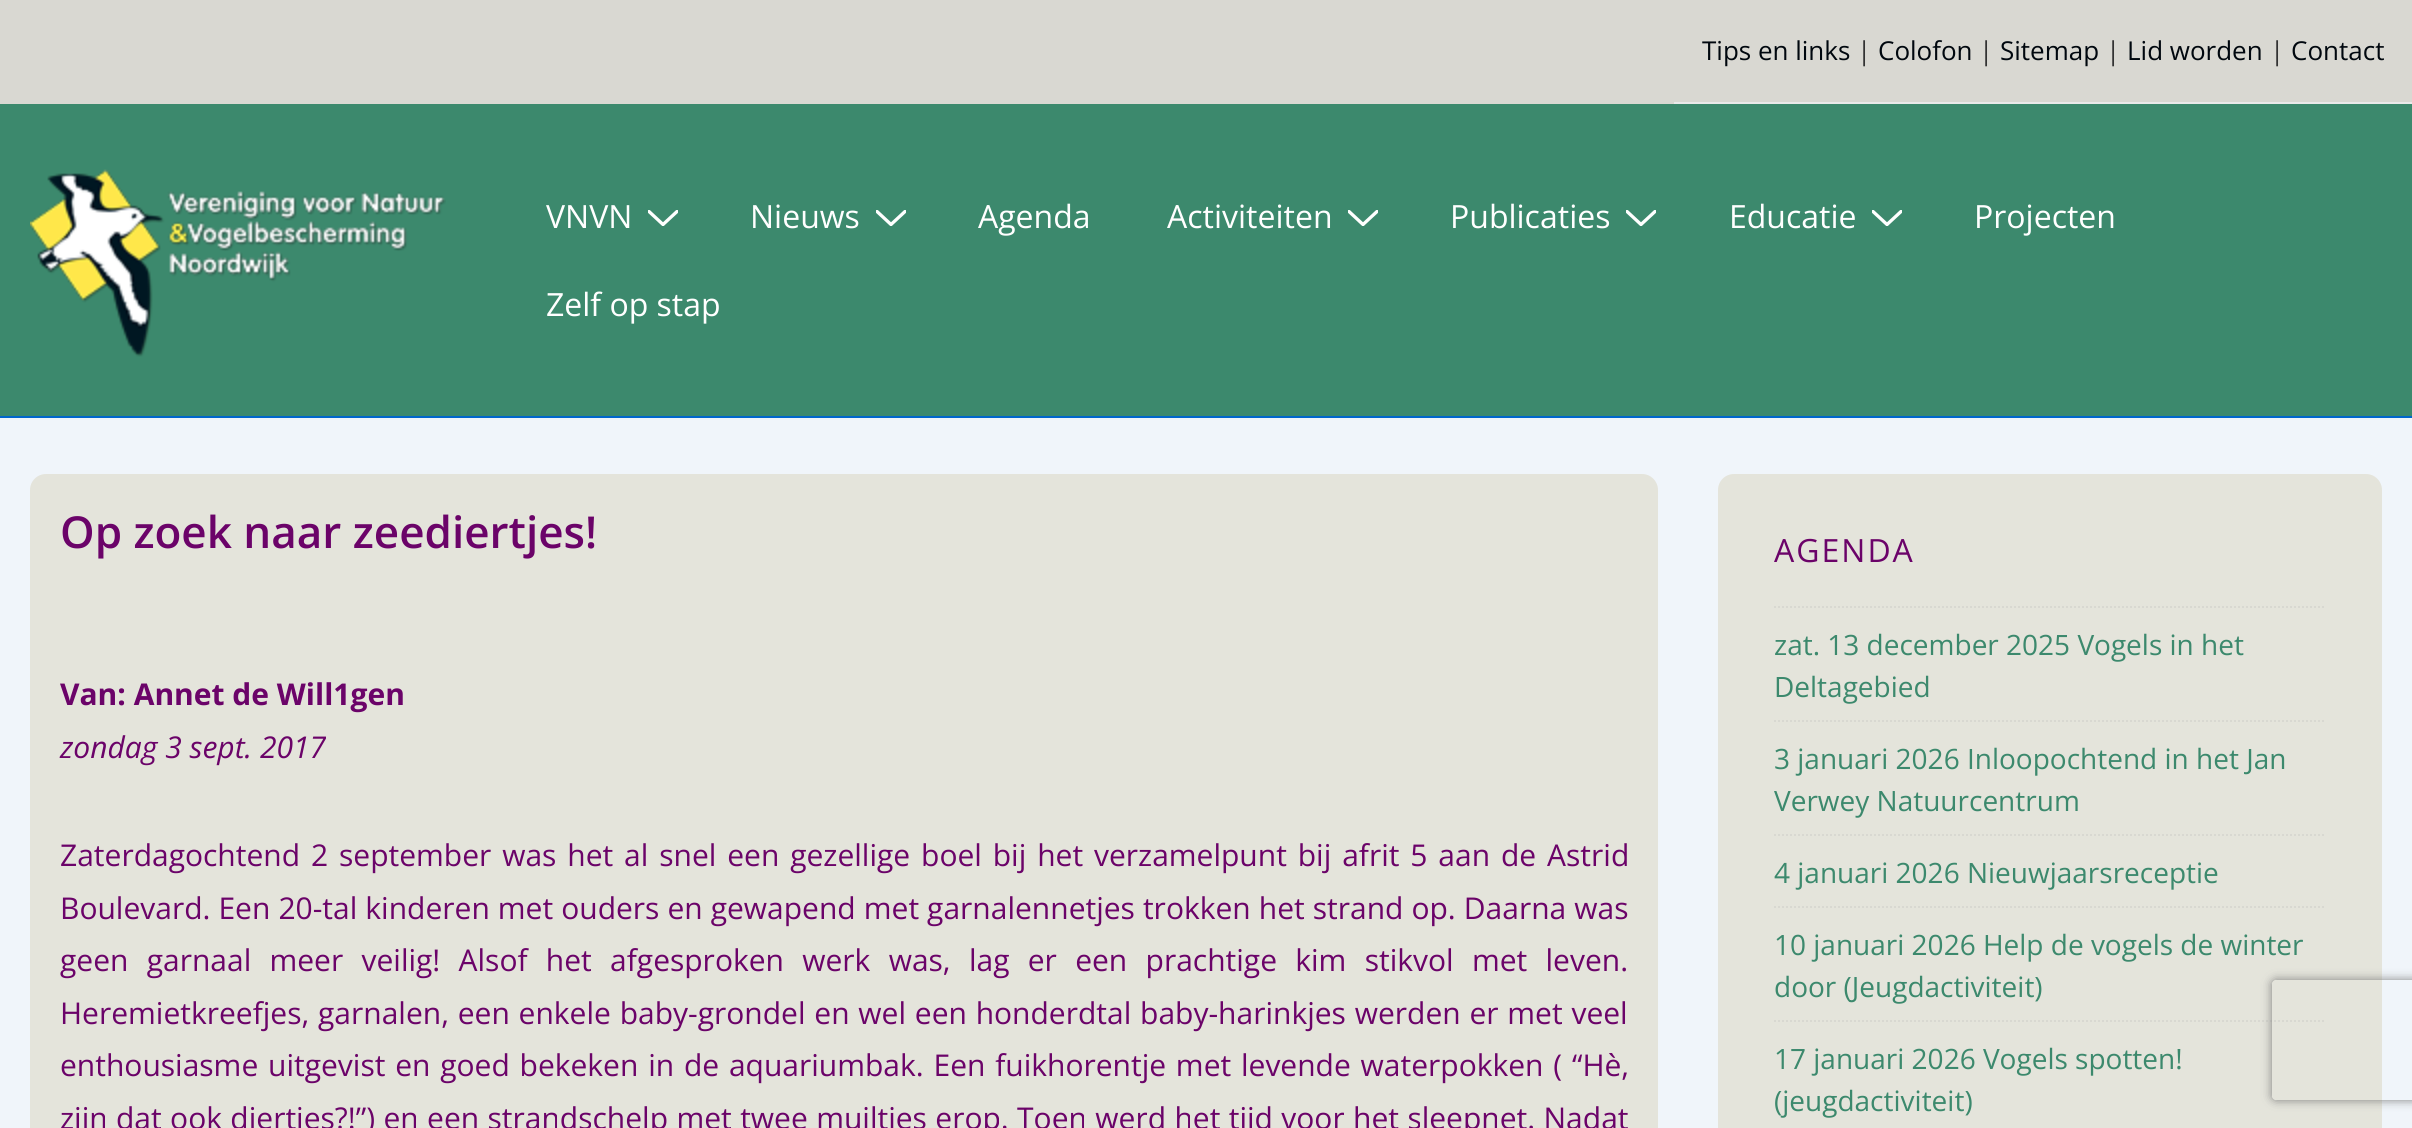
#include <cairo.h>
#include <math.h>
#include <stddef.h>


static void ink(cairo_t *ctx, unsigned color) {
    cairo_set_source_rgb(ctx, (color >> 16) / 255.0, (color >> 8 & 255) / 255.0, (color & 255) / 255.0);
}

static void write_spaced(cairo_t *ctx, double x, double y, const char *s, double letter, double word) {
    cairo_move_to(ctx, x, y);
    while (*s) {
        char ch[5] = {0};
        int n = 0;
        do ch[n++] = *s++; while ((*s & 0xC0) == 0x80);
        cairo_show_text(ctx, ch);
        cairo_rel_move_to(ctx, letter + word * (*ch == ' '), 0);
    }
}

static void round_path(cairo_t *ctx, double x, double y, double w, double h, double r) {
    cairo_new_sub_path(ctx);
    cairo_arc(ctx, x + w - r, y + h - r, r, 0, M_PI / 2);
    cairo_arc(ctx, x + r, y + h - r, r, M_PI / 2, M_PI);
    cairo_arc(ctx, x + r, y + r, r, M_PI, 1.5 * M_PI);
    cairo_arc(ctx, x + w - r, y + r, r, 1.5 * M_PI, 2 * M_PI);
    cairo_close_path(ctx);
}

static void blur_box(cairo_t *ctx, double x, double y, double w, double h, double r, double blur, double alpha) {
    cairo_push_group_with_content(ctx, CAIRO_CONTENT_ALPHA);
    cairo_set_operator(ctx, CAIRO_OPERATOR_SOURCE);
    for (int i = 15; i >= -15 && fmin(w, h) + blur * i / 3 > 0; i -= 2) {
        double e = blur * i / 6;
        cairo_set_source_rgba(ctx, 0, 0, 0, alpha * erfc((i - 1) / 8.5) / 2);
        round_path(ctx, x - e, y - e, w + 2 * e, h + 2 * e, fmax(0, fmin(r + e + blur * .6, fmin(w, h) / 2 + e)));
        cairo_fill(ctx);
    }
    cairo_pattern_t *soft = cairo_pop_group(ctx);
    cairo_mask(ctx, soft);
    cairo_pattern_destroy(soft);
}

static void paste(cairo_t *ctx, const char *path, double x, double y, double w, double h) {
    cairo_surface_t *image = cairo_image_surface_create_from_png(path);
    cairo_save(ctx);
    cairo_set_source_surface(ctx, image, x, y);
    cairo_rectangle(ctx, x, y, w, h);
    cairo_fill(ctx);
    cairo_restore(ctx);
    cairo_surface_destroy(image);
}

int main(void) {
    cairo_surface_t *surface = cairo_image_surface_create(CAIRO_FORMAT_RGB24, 2412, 1128);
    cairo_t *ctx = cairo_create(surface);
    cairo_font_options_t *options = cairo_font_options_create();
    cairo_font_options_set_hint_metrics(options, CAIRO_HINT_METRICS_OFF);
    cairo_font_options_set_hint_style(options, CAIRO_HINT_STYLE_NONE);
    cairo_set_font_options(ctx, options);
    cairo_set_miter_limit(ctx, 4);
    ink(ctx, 0xF0F5FA);
    cairo_paint(ctx);
    ink(ctx, 0xD9D8D2);
    cairo_rectangle(ctx, 0, 0, 2412, 104);
    cairo_fill(ctx);
    ink(ctx, 0xEAEAEA);
    cairo_rectangle(ctx, 1674, 102, 738, 2);
    cairo_fill(ctx);
    cairo_select_font_face(ctx, "Open Sans", CAIRO_FONT_SLANT_NORMAL, CAIRO_FONT_WEIGHT_NORMAL);
    cairo_set_font_size(ctx, 26);
    ink(ctx, 0x00070E);
    cairo_move_to(ctx, 1702, 60);
    cairo_show_text(ctx, "Tips en links");
    ink(ctx, 0x333333);
    cairo_move_to(ctx, 1857, 60);
    cairo_show_text(ctx, "|");
    ink(ctx, 0x00070E);
    cairo_move_to(ctx, 1878, 60);
    cairo_show_text(ctx, "Colofon");
    ink(ctx, 0x333333);
    cairo_move_to(ctx, 1979, 60);
    cairo_show_text(ctx, "|");
    ink(ctx, 0x00070E);
    cairo_move_to(ctx, 2000, 60);
    cairo_show_text(ctx, "Sitemap");
    ink(ctx, 0x333333);
    cairo_move_to(ctx, 2106, 60);
    cairo_show_text(ctx, "|");
    ink(ctx, 0x00070E);
    cairo_move_to(ctx, 2127, 60);
    cairo_show_text(ctx, "Lid worden");
    ink(ctx, 0x333333);
    cairo_move_to(ctx, 2270, 60);
    cairo_show_text(ctx, "|");
    ink(ctx, 0x00070E);
    cairo_move_to(ctx, 2291, 60);
    cairo_show_text(ctx, "Contact");
    ink(ctx, 0x3C896D);
    cairo_rectangle(ctx, 0, 104, 2412, 312);
    cairo_fill(ctx);
    ink(ctx, 0x0066CC);
    cairo_rectangle(ctx, 0, 416, 2412, 2);
    cairo_fill(ctx);
    paste(ctx, "media/1.png", 30, 169, 416, 188);
    cairo_set_font_size(ctx, 32);
    ink(ctx, 0xFFFFFF);
    cairo_move_to(ctx, 546, 228);
    cairo_show_text(ctx, "VNVN");
    cairo_save(ctx);
    cairo_rectangle(ctx, 648, 210, 30, 16);
    cairo_clip(ctx);
    cairo_new_path(ctx);
    cairo_move_to(ctx, 649, 211.5);
    cairo_line_to(ctx, 663, 224.5);
    cairo_line_to(ctx, 677, 211.5);
    cairo_set_line_width(ctx, 3.3);
    cairo_set_line_cap(ctx, CAIRO_LINE_CAP_ROUND);
    cairo_stroke(ctx);
    cairo_restore(ctx);
    cairo_move_to(ctx, 750, 228);
    cairo_show_text(ctx, "Nieuws");
    cairo_save(ctx);
    cairo_rectangle(ctx, 876, 210, 30, 16);
    cairo_clip(ctx);
    cairo_new_path(ctx);
    cairo_move_to(ctx, 877, 211.5);
    cairo_line_to(ctx, 891, 224.5);
    cairo_line_to(ctx, 905, 211.5);
    cairo_set_line_width(ctx, 3.3);
    cairo_set_line_cap(ctx, CAIRO_LINE_CAP_ROUND);
    cairo_stroke(ctx);
    cairo_restore(ctx);
    cairo_move_to(ctx, 978, 228);
    cairo_show_text(ctx, "Agenda");
    cairo_move_to(ctx, 1167, 228);
    cairo_show_text(ctx, "Activiteiten");
    cairo_save(ctx);
    cairo_rectangle(ctx, 1348, 210, 30, 16);
    cairo_clip(ctx);
    cairo_new_path(ctx);
    cairo_move_to(ctx, 1349, 211.5);
    cairo_line_to(ctx, 1363, 224.5);
    cairo_line_to(ctx, 1377, 211.5);
    cairo_set_line_width(ctx, 3.3);
    cairo_set_line_cap(ctx, CAIRO_LINE_CAP_ROUND);
    cairo_stroke(ctx);
    cairo_restore(ctx);
    cairo_move_to(ctx, 1450, 228);
    cairo_show_text(ctx, "Publicaties");
    cairo_save(ctx);
    cairo_rectangle(ctx, 1626, 210, 30, 16);
    cairo_clip(ctx);
    cairo_new_path(ctx);
    cairo_move_to(ctx, 1627, 211.5);
    cairo_line_to(ctx, 1641, 224.5);
    cairo_line_to(ctx, 1655, 211.5);
    cairo_set_line_width(ctx, 3.3);
    cairo_set_line_cap(ctx, CAIRO_LINE_CAP_ROUND);
    cairo_stroke(ctx);
    cairo_restore(ctx);
    cairo_move_to(ctx, 1729, 228);
    cairo_show_text(ctx, "Educatie");
    cairo_save(ctx);
    cairo_rectangle(ctx, 1872, 210, 30, 16);
    cairo_clip(ctx);
    cairo_new_path(ctx);
    cairo_move_to(ctx, 1873, 211.5);
    cairo_line_to(ctx, 1887, 224.5);
    cairo_line_to(ctx, 1901, 211.5);
    cairo_set_line_width(ctx, 3.3);
    cairo_set_line_cap(ctx, CAIRO_LINE_CAP_ROUND);
    cairo_stroke(ctx);
    cairo_restore(ctx);
    cairo_move_to(ctx, 1974, 228);
    cairo_show_text(ctx, "Projecten");
    cairo_move_to(ctx, 546, 316);
    cairo_show_text(ctx, "Zelf op stap");
    ink(ctx, 0xE4E4DB);
    round_path(ctx, 30, 474, 1628, 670, 16);
    cairo_fill(ctx);
    cairo_select_font_face(ctx, "Open Sans SemiBold", CAIRO_FONT_SLANT_NORMAL, CAIRO_FONT_WEIGHT_NORMAL);
    cairo_set_font_size(ctx, 44);
    ink(ctx, 0x6B0369);
    cairo_move_to(ctx, 60, 548);
    cairo_show_text(ctx, "Op zoek naar zeediertjes!");
    cairo_select_font_face(ctx, "Open Sans", CAIRO_FONT_SLANT_NORMAL, CAIRO_FONT_WEIGHT_BOLD);
    cairo_set_font_size(ctx, 30);
    cairo_move_to(ctx, 60, 705);
    cairo_show_text(ctx, "Van: Annet de Will1gen");
    cairo_select_font_face(ctx, "Open Sans", CAIRO_FONT_SLANT_ITALIC, CAIRO_FONT_WEIGHT_NORMAL);
    cairo_move_to(ctx, 60, 758);
    cairo_show_text(ctx, "zondag 3 sept. 2017");
    cairo_select_font_face(ctx, "Open Sans", CAIRO_FONT_SLANT_NORMAL, CAIRO_FONT_WEIGHT_NORMAL);
    write_spaced(ctx, 60, 866, "Zaterdagochtend 2 september was het al snel een gezellige boel bij het verzamelpunt bij afrit 5 aan de Astrid", 0, 3.1);
    write_spaced(ctx, 60, 919, "Boulevard. Een 20-tal kinderen met ouders en gewapend met garnalennetjes trokken het strand op. Daarna was", 0, 0.25);
    write_spaced(ctx, 60, 971, "geen garnaal meer veilig! Alsof het afgesproken werk was, lag er een prachtige kim stikvol met leven.", 0, 10.5);
    write_spaced(ctx, 60, 1024, "Heremietkreefjes, garnalen, een enkele baby-grondel en wel een honderdtal baby-harinkjes werden er met veel", 0, 1);
    write_spaced(ctx, 60, 1076, "enthousiasme uitgevist en goed bekeken in de aquariumbak. Een fuikhorentje met levende waterpokken ( “Hè,", 0, 2);
    write_spaced(ctx, 60, 1129, "zijn dat ook diertjes?!”) en een strandschelp met twee muiltjes erop. Toen werd het tijd voor het sleepnet. Nadat", 0, 0.6);
    ink(ctx, 0xE4E4DB);
    round_path(ctx, 1718, 474, 664, 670, 16);
    cairo_fill(ctx);
    cairo_set_font_size(ctx, 32);
    ink(ctx, 0x6B0369);
    write_spaced(ctx, 1774, 562, "AGENDA", 2, 0);
    cairo_new_path(ctx);
    cairo_move_to(ctx, 1774, 607);
    cairo_line_to(ctx, 2326, 607);
    ink(ctx, 0xD8D8D1);
    cairo_set_dash(ctx, (double[]){2, 2}, 2, 0);
    cairo_stroke(ctx);
    cairo_set_font_size(ctx, 28);
    ink(ctx, 0x3C896D);
    cairo_move_to(ctx, 1774, 655);
    cairo_show_text(ctx, "zat. 13 december 2025 Vogels in het");
    cairo_move_to(ctx, 1774, 697);
    cairo_show_text(ctx, "Deltagebied");
    cairo_new_path(ctx);
    cairo_move_to(ctx, 1774, 721);
    cairo_line_to(ctx, 2326, 721);
    ink(ctx, 0xD8D8D1);
    cairo_stroke(ctx);
    ink(ctx, 0x3C896D);
    cairo_move_to(ctx, 1774, 769);
    cairo_show_text(ctx, "3 januari 2026 Inloopochtend in het Jan");
    cairo_move_to(ctx, 1774, 811);
    cairo_show_text(ctx, "Verwey Natuurcentrum");
    cairo_new_path(ctx);
    cairo_move_to(ctx, 1774, 835);
    cairo_line_to(ctx, 2326, 835);
    ink(ctx, 0xD8D8D1);
    cairo_stroke(ctx);
    ink(ctx, 0x3C896D);
    cairo_move_to(ctx, 1774, 883);
    cairo_show_text(ctx, "4 januari 2026 Nieuwjaarsreceptie");
    cairo_new_path(ctx);
    cairo_move_to(ctx, 1774, 907);
    cairo_line_to(ctx, 2326, 907);
    ink(ctx, 0xD8D8D1);
    cairo_stroke(ctx);
    ink(ctx, 0x3C896D);
    cairo_move_to(ctx, 1774, 955);
    cairo_show_text(ctx, "10 januari 2026 Help de vogels de winter");
    cairo_move_to(ctx, 1774, 997);
    cairo_show_text(ctx, "door (Jeugdactiviteit)");
    cairo_new_path(ctx);
    cairo_move_to(ctx, 1774, 1021);
    cairo_line_to(ctx, 2326, 1021);
    ink(ctx, 0xD8D8D1);
    cairo_stroke(ctx);
    ink(ctx, 0x3C896D);
    cairo_move_to(ctx, 1774, 1069);
    cairo_show_text(ctx, "17 januari 2026 Vogels spotten!");
    cairo_move_to(ctx, 1774, 1111);
    cairo_show_text(ctx, "(jeugdactiviteit)");
    cairo_save(ctx);
    cairo_set_fill_rule(ctx, CAIRO_FILL_RULE_EVEN_ODD);
    cairo_new_path(ctx);
    cairo_move_to(ctx, 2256, 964);
    cairo_line_to(ctx, 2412, 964);
    cairo_line_to(ctx, 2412, 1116);
    cairo_line_to(ctx, 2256, 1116);
    cairo_close_path(ctx);
    cairo_move_to(ctx, 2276, 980);
    cairo_line_to(ctx, 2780, 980);
    cairo_curve_to(ctx, 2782, 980, 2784, 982, 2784, 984);
    cairo_line_to(ctx, 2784, 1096);
    cairo_curve_to(ctx, 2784, 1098, 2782, 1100, 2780, 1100);
    cairo_line_to(ctx, 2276, 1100);
    cairo_curve_to(ctx, 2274, 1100, 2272, 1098, 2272, 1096);
    cairo_line_to(ctx, 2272, 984);
    cairo_curve_to(ctx, 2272, 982, 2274, 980, 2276, 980);
    cairo_close_path(ctx);
    cairo_clip(ctx);
    ink(ctx, 0x808080);
    blur_box(ctx, 2272, 980, 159, 120, 4, 5, 1);
    cairo_restore(ctx);
    cairo_surface_write_to_png(surface, "image.png");
    cairo_font_options_destroy(options);
    cairo_destroy(ctx);
    cairo_surface_destroy(surface);
    return 0;
}
